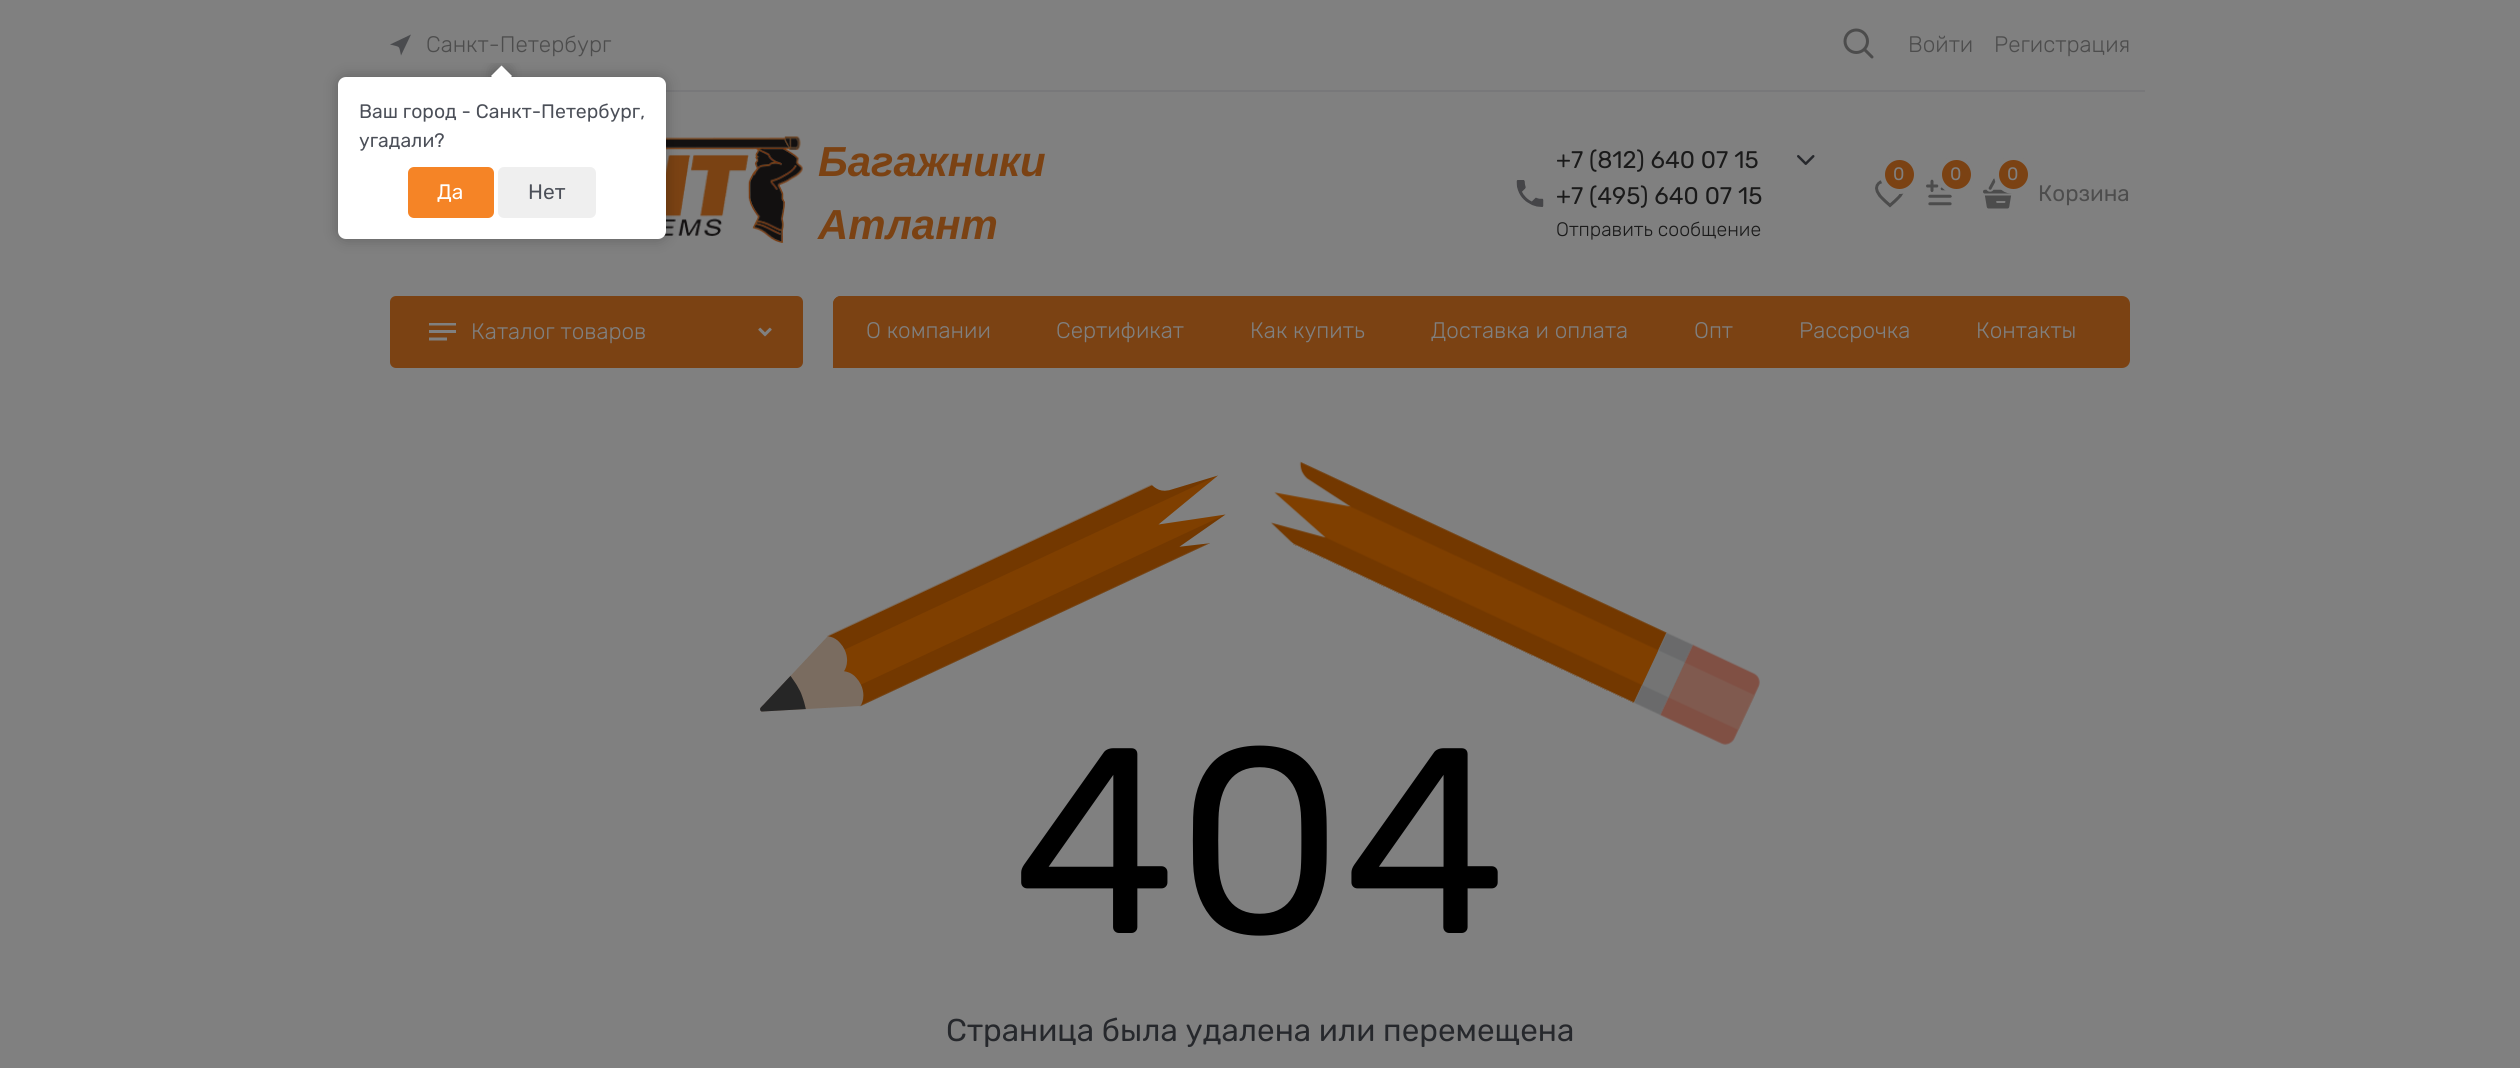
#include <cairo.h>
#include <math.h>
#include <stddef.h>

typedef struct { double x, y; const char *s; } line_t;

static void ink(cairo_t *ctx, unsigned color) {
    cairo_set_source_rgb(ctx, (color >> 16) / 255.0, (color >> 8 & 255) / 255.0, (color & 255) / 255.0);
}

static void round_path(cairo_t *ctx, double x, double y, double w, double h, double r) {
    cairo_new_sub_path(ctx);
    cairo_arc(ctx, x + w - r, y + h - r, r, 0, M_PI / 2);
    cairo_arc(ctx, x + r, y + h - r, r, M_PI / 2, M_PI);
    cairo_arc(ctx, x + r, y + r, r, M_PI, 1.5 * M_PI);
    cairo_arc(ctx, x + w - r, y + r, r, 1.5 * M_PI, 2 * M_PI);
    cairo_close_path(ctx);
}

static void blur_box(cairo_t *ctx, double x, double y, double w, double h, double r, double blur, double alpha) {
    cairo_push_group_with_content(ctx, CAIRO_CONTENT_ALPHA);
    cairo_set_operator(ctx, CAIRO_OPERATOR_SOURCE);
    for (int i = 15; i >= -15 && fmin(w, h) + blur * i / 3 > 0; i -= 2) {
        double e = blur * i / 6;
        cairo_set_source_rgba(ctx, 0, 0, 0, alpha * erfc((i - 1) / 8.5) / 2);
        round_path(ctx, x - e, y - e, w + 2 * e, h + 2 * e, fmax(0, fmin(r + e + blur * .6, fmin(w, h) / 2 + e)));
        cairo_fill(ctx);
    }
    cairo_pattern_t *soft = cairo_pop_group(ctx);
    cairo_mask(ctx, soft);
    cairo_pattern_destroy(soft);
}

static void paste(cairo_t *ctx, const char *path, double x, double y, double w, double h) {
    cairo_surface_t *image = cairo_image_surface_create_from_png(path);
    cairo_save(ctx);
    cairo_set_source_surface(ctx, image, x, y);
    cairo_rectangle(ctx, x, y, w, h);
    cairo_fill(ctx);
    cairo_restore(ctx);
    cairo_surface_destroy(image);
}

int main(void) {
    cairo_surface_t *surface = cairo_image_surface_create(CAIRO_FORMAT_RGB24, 2520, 1068);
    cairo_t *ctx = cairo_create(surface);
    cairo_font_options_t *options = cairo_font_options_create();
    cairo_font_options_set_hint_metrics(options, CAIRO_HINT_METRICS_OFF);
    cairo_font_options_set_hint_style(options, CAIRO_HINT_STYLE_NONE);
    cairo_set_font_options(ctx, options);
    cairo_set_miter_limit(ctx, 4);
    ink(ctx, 0x808080);
    cairo_paint(ctx);
    ink(ctx, 0x78787A);
    cairo_rectangle(ctx, 666, 90, 1479, 2);
    cairo_fill(ctx);
    ink(ctx, 0x4A4B4E);
    cairo_new_path(ctx);
    cairo_move_to(ctx, 390, 44.5);
    cairo_curve_to(ctx, 401, 47.5, 398.5, 45, 401, 55.5);
    cairo_line_to(ctx, 411, 34.5);
    cairo_close_path(ctx);
    cairo_fill(ctx);
    cairo_select_font_face(ctx, "Rubik Light", CAIRO_FONT_SLANT_NORMAL, CAIRO_FONT_WEIGHT_NORMAL);
    cairo_set_font_size(ctx, 22.5);
    ink(ctx, 0x4D4D4D);
    cairo_move_to(ctx, 426, 52);
    cairo_show_text(ctx, "Санкт-Петербург");
    paste(ctx, "media/1.png", 1843, 28, 31, 31);
    cairo_move_to(ctx, 1908, 52);
    cairo_show_text(ctx, "Войти");
    cairo_move_to(ctx, 1994, 52);
    cairo_show_text(ctx, "Регистрация");
    paste(ctx, "media/2.png", 664, 136, 139, 107);
    cairo_select_font_face(ctx, "Liberation Sans", CAIRO_FONT_SLANT_ITALIC, CAIRO_FONT_WEIGHT_BOLD);
    cairo_set_font_size(ctx, 42);
    ink(ctx, 0x7B4213);
    cairo_move_to(ctx, 818, 176);
    cairo_show_text(ctx, "Багажники");
    cairo_move_to(ctx, 818, 239);
    cairo_show_text(ctx, "Атлант");
    cairo_select_font_face(ctx, "Rubik", CAIRO_FONT_SLANT_NORMAL, CAIRO_FONT_WEIGHT_NORMAL);
    cairo_set_font_size(ctx, 24);
    ink(ctx, 0x1A1A1A);
    cairo_move_to(ctx, 1556, 168);
    cairo_show_text(ctx, "+7 (812) 640 07 15");
    cairo_move_to(ctx, 1556, 204);
    cairo_show_text(ctx, "+7 (495) 640 07 15");
    cairo_select_font_face(ctx, "Rubik Light", CAIRO_FONT_SLANT_NORMAL, CAIRO_FONT_WEIGHT_NORMAL);
    cairo_set_font_size(ctx, 19.5);
    cairo_move_to(ctx, 1556, 236);
    cairo_show_text(ctx, "Отправить сообщение");
    paste(ctx, "media/3.png", 1797, 155, 18, 10);
    paste(ctx, "media/4.png", 1516, 180, 28, 27);
    paste(ctx, "media/5.png", 1875, 180, 29, 28);
    ink(ctx, 0x7B4213);
    cairo_arc(ctx, 1899.5, 174.5, 17, 0, 2 * M_PI);
    cairo_fill_preserve(ctx);
    ink(ctx, 0x808080);
    cairo_set_line_width(ctx, 5);
    cairo_stroke(ctx);
    cairo_select_font_face(ctx, "Rubik", CAIRO_FONT_SLANT_NORMAL, CAIRO_FONT_WEIGHT_NORMAL);
    cairo_set_font_size(ctx, 18);
    cairo_move_to(ctx, 1893, 180);
    cairo_show_text(ctx, "0");
    paste(ctx, "media/6.png", 1926, 179, 26, 27);
    ink(ctx, 0x7B4213);
    cairo_arc(ctx, 1956.5, 174.5, 17, 0, 2 * M_PI);
    cairo_fill_preserve(ctx);
    ink(ctx, 0x808080);
    cairo_stroke(ctx);
    cairo_move_to(ctx, 1950, 180);
    cairo_show_text(ctx, "0");
    paste(ctx, "media/7.png", 1983, 178, 30, 31);
    ink(ctx, 0x7B4213);
    cairo_arc(ctx, 2013.5, 174.5, 17, 0, 2 * M_PI);
    cairo_fill_preserve(ctx);
    ink(ctx, 0x808080);
    cairo_stroke(ctx);
    cairo_move_to(ctx, 2007, 180);
    cairo_show_text(ctx, "0");
    cairo_set_font_size(ctx, 22.5);
    ink(ctx, 0x4D4D4D);
    cairo_move_to(ctx, 2038, 201);
    cairo_show_text(ctx, "Корзина");
    ink(ctx, 0x7B4213);
    round_path(ctx, 390, 296, 413, 72, 6);
    cairo_fill(ctx);
    paste(ctx, "media/8.png", 429, 323, 27, 18);
    cairo_select_font_face(ctx, "Rubik Light", CAIRO_FONT_SLANT_NORMAL, CAIRO_FONT_WEIGHT_NORMAL);
    ink(ctx, 0x808080);
    cairo_move_to(ctx, 471, 339);
    cairo_show_text(ctx, "Каталог товаров");
    paste(ctx, "media/9.png", 758, 327, 14, 10);
    ink(ctx, 0x7B4213);
    round_path(ctx, 833, 296, 1297, 72, 8);
    cairo_fill(ctx);
    cairo_new_path(ctx);
    cairo_move_to(ctx, 841, 296);
    cairo_line_to(ctx, 1015, 296);
    cairo_curve_to(ctx, 1019.5, 296, 1023, 299.5, 1023, 304);
    cairo_line_to(ctx, 1023, 368);
    cairo_line_to(ctx, 833, 368);
    cairo_line_to(ctx, 833, 304);
    cairo_curve_to(ctx, 833, 299.5, 836.5, 296, 841, 296);
    cairo_close_path(ctx);
    cairo_fill(ctx);
    ink(ctx, 0x808080);
    {
        static const line_t items[] = {
            {866, 338, "О компании"},
            {1056, 338, "Сертификат"},
            {1250, 338, "Как купить"},
            {1431, 338, "Доставка и оплата"},
            {1694, 338, "Опт"},
            {1799, 338, "Рассрочка"},
            {1976, 338, "Контакты"},
        };
        for (size_t i = 0; i < sizeof items / sizeof *items; i++) {
            cairo_move_to(ctx, items[i].x, items[i].y);
            cairo_show_text(ctx, items[i].s);
        }
    }
    paste(ctx, "media/10.png", 760, 461, 1000, 284);
    cairo_select_font_face(ctx, "Rubik", CAIRO_FONT_SLANT_NORMAL, CAIRO_FONT_WEIGHT_NORMAL);
    cairo_set_font_size(ctx, 264);
    ink(ctx, 0x000000);
    cairo_move_to(ctx, 1013, 933);
    cairo_show_text(ctx, "404");
    cairo_set_font_size(ctx, 31.5);
    ink(ctx, 0x26282C);
    cairo_move_to(ctx, 946, 1041);
    cairo_show_text(ctx, "Страница была удалена или перемещена");
    ink(ctx, 0x000000);
    blur_box(ctx, 338, 77, 328, 162, 8, 7, 0.25);
    ink(ctx, 0xFFFFFF);
    round_path(ctx, 338, 77, 328, 162, 8);
    cairo_fill(ctx);
    cairo_save(ctx);
    cairo_rectangle(ctx, 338, 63, 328, 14);
    cairo_clip(ctx);
    ink(ctx, 0x000000);
    blur_box(ctx, 494, 69, 15, 15, 0, 7, 0.25);
    cairo_restore(ctx);
    cairo_save(ctx);
    cairo_rectangle(ctx, 338, 63, 328, 14);
    cairo_clip(ctx);
    cairo_new_path(ctx);
    cairo_move_to(ctx, 501.5, 65.5);
    cairo_line_to(ctx, 512, 76);
    cairo_line_to(ctx, 501.5, 87);
    cairo_line_to(ctx, 491, 76);
    cairo_close_path(ctx);
    cairo_fill(ctx);
    cairo_restore(ctx);
    cairo_set_font_size(ctx, 19.5);
    ink(ctx, 0x4B4F58);
    cairo_move_to(ctx, 359, 118);
    cairo_show_text(ctx, "Ваш город - Санкт-Петербург,");
    cairo_move_to(ctx, 359, 147);
    cairo_show_text(ctx, "угадали?");
    ink(ctx, 0xF58426);
    round_path(ctx, 408, 167, 86, 51, 6);
    cairo_fill(ctx);
    cairo_set_font_size(ctx, 21);
    ink(ctx, 0xFFFFFF);
    cairo_move_to(ctx, 437, 199);
    cairo_show_text(ctx, "Да");
    ink(ctx, 0xEFEFEF);
    round_path(ctx, 498, 167, 98, 51, 6);
    cairo_fill(ctx);
    ink(ctx, 0x4B4F58);
    cairo_move_to(ctx, 528, 199);
    cairo_show_text(ctx, "Нет");
    cairo_surface_write_to_png(surface, "image.png");
    cairo_font_options_destroy(options);
    cairo_destroy(ctx);
    cairo_surface_destroy(surface);
    return 0;
}
